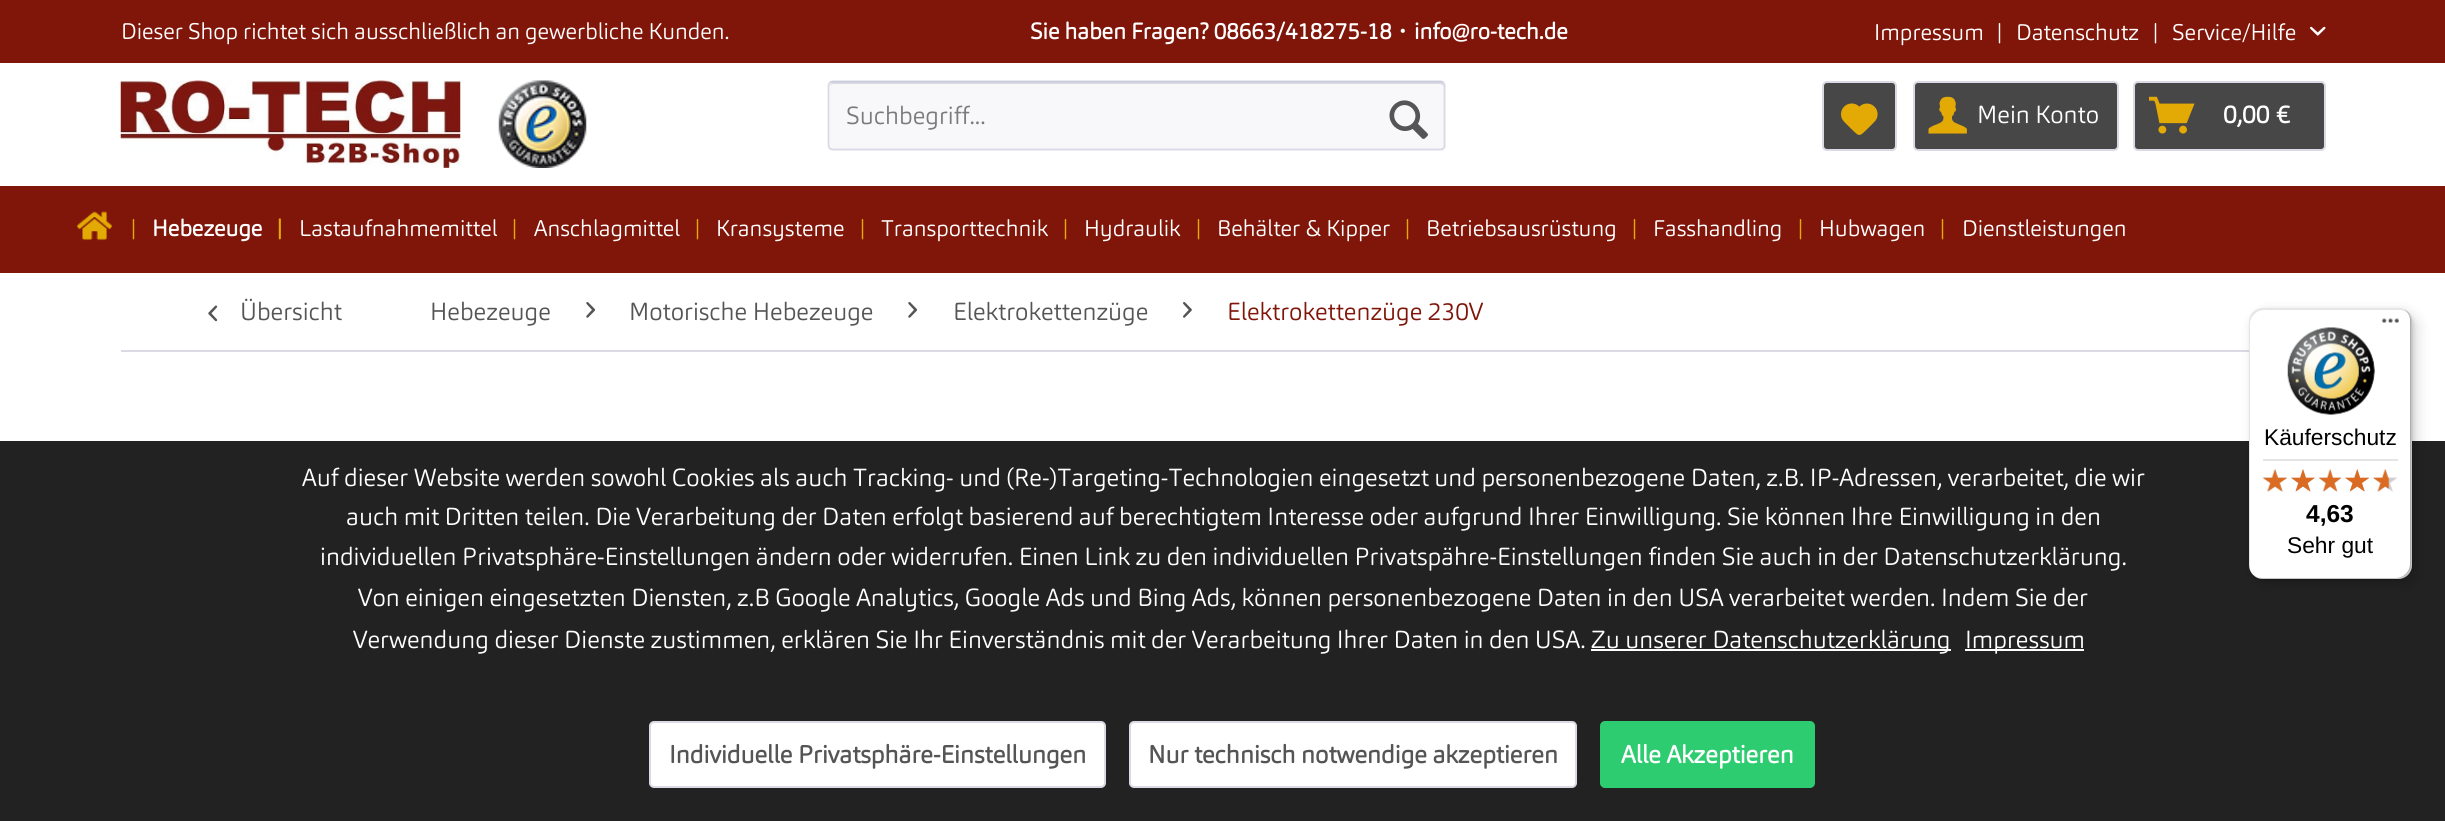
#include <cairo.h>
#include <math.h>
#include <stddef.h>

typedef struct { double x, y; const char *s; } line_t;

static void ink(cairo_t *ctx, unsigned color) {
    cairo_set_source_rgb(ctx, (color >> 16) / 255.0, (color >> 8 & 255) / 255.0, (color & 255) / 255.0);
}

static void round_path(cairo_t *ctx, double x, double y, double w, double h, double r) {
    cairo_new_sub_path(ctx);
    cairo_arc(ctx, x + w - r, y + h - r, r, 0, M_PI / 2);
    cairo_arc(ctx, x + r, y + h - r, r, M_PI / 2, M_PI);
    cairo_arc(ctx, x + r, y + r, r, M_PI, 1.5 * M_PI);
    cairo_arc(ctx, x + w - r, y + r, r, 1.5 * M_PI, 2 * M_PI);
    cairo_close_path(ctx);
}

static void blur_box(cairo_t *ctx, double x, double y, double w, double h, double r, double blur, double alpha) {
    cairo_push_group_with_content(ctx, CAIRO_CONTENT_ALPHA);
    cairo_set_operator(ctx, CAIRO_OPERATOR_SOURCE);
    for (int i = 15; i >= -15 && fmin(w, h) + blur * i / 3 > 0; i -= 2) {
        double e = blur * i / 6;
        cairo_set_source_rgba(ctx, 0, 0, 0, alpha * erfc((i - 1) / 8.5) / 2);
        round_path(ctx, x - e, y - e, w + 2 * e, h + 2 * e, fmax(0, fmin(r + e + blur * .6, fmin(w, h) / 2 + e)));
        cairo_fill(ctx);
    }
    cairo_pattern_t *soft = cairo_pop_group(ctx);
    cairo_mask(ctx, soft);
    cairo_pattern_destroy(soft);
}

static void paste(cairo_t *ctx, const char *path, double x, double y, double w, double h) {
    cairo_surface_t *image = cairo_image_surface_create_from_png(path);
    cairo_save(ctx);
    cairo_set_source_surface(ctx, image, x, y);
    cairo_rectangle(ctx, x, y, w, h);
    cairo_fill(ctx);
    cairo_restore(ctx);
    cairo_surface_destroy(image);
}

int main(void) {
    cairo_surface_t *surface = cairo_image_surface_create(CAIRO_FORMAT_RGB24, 2445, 821);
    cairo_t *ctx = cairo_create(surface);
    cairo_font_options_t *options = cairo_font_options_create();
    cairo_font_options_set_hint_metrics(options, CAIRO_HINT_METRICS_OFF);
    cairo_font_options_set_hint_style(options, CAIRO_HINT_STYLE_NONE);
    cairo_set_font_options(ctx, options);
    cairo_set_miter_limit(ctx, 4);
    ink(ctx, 0xFFFFFF);
    cairo_paint(ctx);
    ink(ctx, 0x801609);
    cairo_rectangle(ctx, 0, 0, 2445, 63);
    cairo_fill(ctx);
    cairo_select_font_face(ctx, "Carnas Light", CAIRO_FONT_SLANT_NORMAL, CAIRO_FONT_WEIGHT_NORMAL);
    cairo_set_font_size(ctx, 22.4);
    ink(ctx, 0xFFFFFF);
    cairo_move_to(ctx, 121, 39);
    cairo_show_text(ctx, "Dieser Shop richtet sich ausschließlich an gewerbliche Kunden.");
    cairo_select_font_face(ctx, "Carnas", CAIRO_FONT_SLANT_NORMAL, CAIRO_FONT_WEIGHT_BOLD);
    cairo_move_to(ctx, 1030, 39);
    cairo_show_text(ctx, "Sie haben Fragen? 08663/418275-18");
    cairo_select_font_face(ctx, "WenQuanYi Zen Hei", CAIRO_FONT_SLANT_NORMAL, CAIRO_FONT_WEIGHT_BOLD);
    cairo_move_to(ctx, 1391, 39);
    cairo_show_text(ctx, "・");
    cairo_select_font_face(ctx, "Carnas", CAIRO_FONT_SLANT_NORMAL, CAIRO_FONT_WEIGHT_BOLD);
    cairo_move_to(ctx, 1414, 39);
    cairo_show_text(ctx, "info@ro-tech.de");
    cairo_select_font_face(ctx, "Carnas Light", CAIRO_FONT_SLANT_NORMAL, CAIRO_FONT_WEIGHT_NORMAL);
    {
        static const line_t items[] = {
            {1874, 40, "Impressum"},
            {1997, 40, "|"},
            {2016, 40, "Datenschutz"},
            {2153, 40, "|"},
            {2172, 40, "Service/Hilfe"},
        };
        for (size_t i = 0; i < sizeof items / sizeof *items; i++) {
            cairo_move_to(ctx, items[i].x, items[i].y);
            cairo_show_text(ctx, items[i].s);
        }
    }
    paste(ctx, "media/1.png", 2310, 26, 16, 10);
    paste(ctx, "media/2.png", 120, 80, 341, 88);
    paste(ctx, "media/3.png", 498, 80, 89, 88);
    ink(ctx, 0xF8F8FA);
    round_path(ctx, 828, 81, 618, 70, 5);
    cairo_fill(ctx);
    ink(ctx, 0xDADAE5);
    cairo_new_path(ctx);
    cairo_move_to(ctx, 833, 84);
    cairo_line_to(ctx, 1440, 84);
    cairo_curve_to(ctx, 1442, 84, 1444, 86, 1444, 88);
    cairo_curve_to(ctx, 1444, 85, 1444, 82, 1440, 82);
    cairo_line_to(ctx, 832, 82);
    cairo_line_to(ctx, 831, 84);
    cairo_curve_to(ctx, 830, 85, 830, 87, 830, 88);
    cairo_curve_to(ctx, 830, 86, 831, 84, 833, 84);
    cairo_close_path(ctx);
    cairo_fill(ctx);
    cairo_new_path(ctx);
    cairo_move_to(ctx, 830, 82.5);
    cairo_curve_to(ctx, 830.5, 82, 832, 81.5, 833, 81.5);
    cairo_line_to(ctx, 1440, 81.5);
    cairo_curve_to(ctx, 1441.5, 81.5, 1442.5, 82, 1443.5, 82.5);
    ink(ctx, 0xCBCBDB);
    cairo_set_line_width(ctx, 1.8);
    cairo_stroke(ctx);
    cairo_new_path(ctx);
    cairo_move_to(ctx, 1443.5, 82.5);
    cairo_curve_to(ctx, 1444, 83.5, 1444.5, 84.5, 1444.5, 86);
    cairo_line_to(ctx, 1444.5, 145);
    cairo_curve_to(ctx, 1444.5, 146.5, 1444, 147.5, 1443.5, 148.5);
    cairo_curve_to(ctx, 1442.5, 149, 1441.5, 149.5, 1440, 149.5);
    cairo_line_to(ctx, 833, 149.5);
    cairo_curve_to(ctx, 832, 149.5, 830.5, 149, 830, 148.5);
    cairo_curve_to(ctx, 829, 147.5, 828.5, 146.5, 828.5, 145);
    cairo_line_to(ctx, 828.5, 86);
    cairo_curve_to(ctx, 828.5, 84.5, 829, 83.5, 830, 82.5);
    ink(ctx, 0xDADAE5);
    cairo_stroke(ctx);
    cairo_set_font_size(ctx, 24.5);
    ink(ctx, 0x7B7B7B);
    cairo_move_to(ctx, 846, 124);
    cairo_show_text(ctx, "Suchbegriff...");
    paste(ctx, "media/4.png", 1389, 100, 39, 39);
    ink(ctx, 0x474747);
    round_path(ctx, 1823, 82, 73, 68, 4);
    cairo_fill_preserve(ctx);
    ink(ctx, 0xDADAE5);
    cairo_set_line_width(ctx, 2);
    cairo_stroke(ctx);
    paste(ctx, "media/5.png", 1841, 103, 37, 32);
    ink(ctx, 0x474747);
    round_path(ctx, 1914, 82, 204, 68, 4);
    cairo_fill_preserve(ctx);
    ink(ctx, 0xDADAE5);
    cairo_stroke(ctx);
    paste(ctx, "media/6.png", 1928, 96, 39, 38);
    ink(ctx, 0xFFFFFF);
    cairo_move_to(ctx, 1977, 123);
    cairo_show_text(ctx, "Mein Konto");
    ink(ctx, 0x474747);
    round_path(ctx, 2134, 82, 191, 68, 4);
    cairo_fill_preserve(ctx);
    ink(ctx, 0xDADAE5);
    cairo_stroke(ctx);
    paste(ctx, "media/7.png", 2149, 96, 46, 38);
    cairo_select_font_face(ctx, "Carnas", CAIRO_FONT_SLANT_NORMAL, CAIRO_FONT_WEIGHT_BOLD);
    ink(ctx, 0xFFFFFF);
    cairo_move_to(ctx, 2223, 123);
    cairo_show_text(ctx, "0,00 €");
    ink(ctx, 0x801609);
    cairo_rectangle(ctx, 0, 186, 2445, 87);
    cairo_fill(ctx);
    paste(ctx, "media/8.png", 77, 211, 35, 30);
    cairo_select_font_face(ctx, "Carnas Light", CAIRO_FONT_SLANT_NORMAL, CAIRO_FONT_WEIGHT_NORMAL);
    cairo_set_font_size(ctx, 22.4);
    ink(ctx, 0xE3AA05);
    cairo_move_to(ctx, 131, 236);
    cairo_show_text(ctx, "|");
    cairo_select_font_face(ctx, "Carnas", CAIRO_FONT_SLANT_NORMAL, CAIRO_FONT_WEIGHT_BOLD);
    ink(ctx, 0xFFFFFF);
    cairo_move_to(ctx, 152, 236);
    cairo_show_text(ctx, "Hebezeuge");
    ink(ctx, 0xE3AA05);
    cairo_move_to(ctx, 277, 236);
    cairo_show_text(ctx, "|");
    cairo_select_font_face(ctx, "Carnas Light", CAIRO_FONT_SLANT_NORMAL, CAIRO_FONT_WEIGHT_NORMAL);
    ink(ctx, 0xFFFFFF);
    cairo_move_to(ctx, 299, 236);
    cairo_show_text(ctx, "Lastaufnahmemittel");
    ink(ctx, 0xE3AA05);
    cairo_move_to(ctx, 512, 236);
    cairo_show_text(ctx, "|");
    ink(ctx, 0xFFFFFF);
    cairo_move_to(ctx, 534, 236);
    cairo_show_text(ctx, "Anschlagmittel");
    ink(ctx, 0xE3AA05);
    cairo_move_to(ctx, 695, 236);
    cairo_show_text(ctx, "|");
    ink(ctx, 0xFFFFFF);
    cairo_move_to(ctx, 716, 236);
    cairo_show_text(ctx, "Kransysteme");
    ink(ctx, 0xE3AA05);
    cairo_move_to(ctx, 860, 236);
    cairo_show_text(ctx, "|");
    ink(ctx, 0xFFFFFF);
    cairo_move_to(ctx, 881, 236);
    cairo_show_text(ctx, "Transporttechnik");
    ink(ctx, 0xE3AA05);
    cairo_move_to(ctx, 1063, 236);
    cairo_show_text(ctx, "|");
    ink(ctx, 0xFFFFFF);
    cairo_move_to(ctx, 1084, 236);
    cairo_show_text(ctx, "Hydraulik");
    ink(ctx, 0xE3AA05);
    cairo_move_to(ctx, 1196, 236);
    cairo_show_text(ctx, "|");
    ink(ctx, 0xFFFFFF);
    cairo_move_to(ctx, 1217, 236);
    cairo_show_text(ctx, "Behälter & Kipper");
    ink(ctx, 0xE3AA05);
    cairo_move_to(ctx, 1405, 236);
    cairo_show_text(ctx, "|");
    ink(ctx, 0xFFFFFF);
    cairo_move_to(ctx, 1426, 236);
    cairo_show_text(ctx, "Betriebsausrüstung");
    ink(ctx, 0xE3AA05);
    cairo_move_to(ctx, 1632, 236);
    cairo_show_text(ctx, "|");
    ink(ctx, 0xFFFFFF);
    cairo_move_to(ctx, 1653, 236);
    cairo_show_text(ctx, "Fasshandling");
    ink(ctx, 0xE3AA05);
    cairo_move_to(ctx, 1798, 236);
    cairo_show_text(ctx, "|");
    ink(ctx, 0xFFFFFF);
    cairo_move_to(ctx, 1819, 236);
    cairo_show_text(ctx, "Hubwagen");
    ink(ctx, 0xE3AA05);
    cairo_move_to(ctx, 1940, 236);
    cairo_show_text(ctx, "|");
    ink(ctx, 0xFFFFFF);
    cairo_move_to(ctx, 1962, 236);
    cairo_show_text(ctx, "Dienstleistungen");
    ink(ctx, 0xDADAE5);
    cairo_rectangle(ctx, 121, 350, 2128, 2);
    cairo_fill(ctx);
    paste(ctx, "media/9.png", 208, 305, 10, 17);
    cairo_set_font_size(ctx, 24.5);
    ink(ctx, 0x555555);
    cairo_move_to(ctx, 240, 320);
    cairo_show_text(ctx, "Übersicht");
    cairo_move_to(ctx, 430, 320);
    cairo_show_text(ctx, "Hebezeuge");
    paste(ctx, "media/10.png", 586, 302, 10, 16);
    cairo_move_to(ctx, 629, 320);
    cairo_show_text(ctx, "Motorische Hebezeuge");
    paste(ctx, "media/10.png", 908, 302, 10, 16);
    cairo_move_to(ctx, 953, 320);
    cairo_show_text(ctx, "Elektrokettenzüge");
    paste(ctx, "media/11.png", 1183, 302, 9, 16);
    ink(ctx, 0x7F1609);
    cairo_move_to(ctx, 1227, 320);
    cairo_show_text(ctx, "Elektrokettenzüge 230V");
    ink(ctx, 0x222222);
    cairo_rectangle(ctx, 0, 441, 2445, 380);
    cairo_fill(ctx);
    ink(ctx, 0xFFFFFF);
    {
        static const line_t items[] = {
            {302, 486, "Auf dieser Website werden sowohl Cookies als auch Tracking- und (Re-)Targeting-Technologien eingesetzt und personenbezogene Daten, z.B. IP-Adressen, verarbeitet, die wir"},
            {346, 525, "auch mit Dritten teilen. Die Verarbeitung der Daten erfolgt basierend auf berechtigtem Interesse oder aufgrund Ihrer Einwilligung. Sie können Ihre Einwilligung in den"},
            {320, 565, "individuellen Privatsphäre-Einstellungen ändern oder widerrufen. Einen Link zu den individuellen Privatspähre-Einstellungen finden Sie auch in der Datenschutzerklärung."},
            {358, 606, "Von einigen eingesetzten Diensten, z.B Google Analytics, Google Ads und Bing Ads, können personenbezogene Daten in den USA verarbeitet werden. Indem Sie der"},
            {353, 648, "Verwendung dieser Dienste zustimmen, erklären Sie Ihr Einverständnis mit der Verarbeitung Ihrer Daten in den USA."},
        };
        for (size_t i = 0; i < sizeof items / sizeof *items; i++) {
            cairo_move_to(ctx, items[i].x, items[i].y);
            cairo_show_text(ctx, items[i].s);
        }
    }
    cairo_rectangle(ctx, 1591, 649, 360, 2);
    cairo_fill(ctx);
    cairo_move_to(ctx, 1591, 648);
    cairo_show_text(ctx, "Zu unserer Datenschutzerklärung");
    cairo_rectangle(ctx, 1965, 649, 119, 2);
    cairo_fill(ctx);
    cairo_move_to(ctx, 1965, 648);
    cairo_show_text(ctx, "Impressum");
    round_path(ctx, 650, 722, 455, 65, 4);
    cairo_fill_preserve(ctx);
    ink(ctx, 0xDADAE5);
    cairo_stroke(ctx);
    cairo_select_font_face(ctx, "Carnas", CAIRO_FONT_SLANT_NORMAL, CAIRO_FONT_WEIGHT_BOLD);
    ink(ctx, 0x555555);
    cairo_move_to(ctx, 669, 763);
    cairo_show_text(ctx, "Individuelle Privatsphäre-Einstellungen");
    ink(ctx, 0xFFFFFF);
    round_path(ctx, 1130, 722, 446, 65, 4);
    cairo_fill_preserve(ctx);
    ink(ctx, 0xDADAE5);
    cairo_stroke(ctx);
    ink(ctx, 0x555555);
    cairo_move_to(ctx, 1148, 763);
    cairo_show_text(ctx, "Nur technisch notwendige akzeptieren");
    ink(ctx, 0x2ECC71);
    round_path(ctx, 1600, 721, 215, 67, 5);
    cairo_fill(ctx);
    ink(ctx, 0xFFFFFF);
    cairo_move_to(ctx, 1621, 763);
    cairo_show_text(ctx, "Alle Akzeptieren");
    ink(ctx, 0x000000);
    blur_box(ctx, 2254, 313, 163, 272, 14, 7, 0.15);
    blur_box(ctx, 2251, 310, 162, 271, 14, 2, 0.15);
    ink(ctx, 0xFFFFFF);
    round_path(ctx, 2249, 308, 163, 271, 14);
    cairo_fill(ctx);
    cairo_set_source_rgba(ctx, 0, 0, 0, 0.1);
    cairo_new_path(ctx);
    cairo_move_to(ctx, 2264, 310);
    cairo_line_to(ctx, 2399, 310);
    cairo_curve_to(ctx, 2404, 310, 2408, 312, 2411, 316);
    cairo_curve_to(ctx, 2408, 311, 2404, 308, 2398, 308);
    cairo_line_to(ctx, 2263, 308);
    cairo_curve_to(ctx, 2255, 308, 2249, 314, 2249, 322);
    cairo_line_to(ctx, 2249, 565);
    cairo_curve_to(ctx, 2249, 568, 2250, 570, 2251, 572);
    cairo_curve_to(ctx, 2250, 571, 2250, 569, 2250, 567);
    cairo_line_to(ctx, 2250, 324);
    cairo_curve_to(ctx, 2250, 316, 2257, 310, 2264, 310);
    cairo_close_path(ctx);
    cairo_fill(ctx);
    cairo_set_source_rgba(ctx, 0, 0, 0, 0.2);
    cairo_new_path(ctx);
    cairo_move_to(ctx, 2256, 577);
    cairo_curve_to(ctx, 2258, 578, 2260, 579, 2263, 579);
    cairo_line_to(ctx, 2398, 579);
    cairo_curve_to(ctx, 2406, 579, 2412, 573, 2412, 565);
    cairo_line_to(ctx, 2412, 322);
    cairo_curve_to(ctx, 2412, 317, 2409, 312, 2405, 310);
    cairo_curve_to(ctx, 2408, 313, 2410, 316, 2410, 320);
    cairo_line_to(ctx, 2410, 564);
    cairo_curve_to(ctx, 2410, 571, 2403, 578, 2396, 578);
    cairo_line_to(ctx, 2261, 578);
    cairo_curve_to(ctx, 2259, 578, 2257, 578, 2256, 577);
    cairo_close_path(ctx);
    cairo_fill(ctx);
    cairo_set_source_rgba(ctx, 0.196, 0.196, 0.196, 0.2);
    cairo_new_path(ctx);
    cairo_move_to(ctx, 2254, 575);
    cairo_curve_to(ctx, 2256, 578, 2259, 579, 2263, 579);
    cairo_line_to(ctx, 2398, 579);
    cairo_curve_to(ctx, 2406, 579, 2412, 573, 2412, 565);
    cairo_line_to(ctx, 2412, 322);
    cairo_curve_to(ctx, 2412, 316, 2409, 312, 2404, 309);
    cairo_curve_to(ctx, 2408, 312, 2410, 316, 2410, 321);
    cairo_line_to(ctx, 2410, 564);
    cairo_curve_to(ctx, 2410, 572, 2404, 578, 2396, 578);
    cairo_line_to(ctx, 2262, 578);
    cairo_curve_to(ctx, 2259, 578, 2256, 577, 2254, 575);
    cairo_close_path(ctx);
    cairo_fill(ctx);
    cairo_set_source_rgba(ctx, 1, 1, 1, 0.3);
    cairo_new_path(ctx);
    cairo_move_to(ctx, 2254, 575);
    cairo_curve_to(ctx, 2256, 578, 2259, 579, 2263, 579);
    cairo_line_to(ctx, 2398, 579);
    cairo_curve_to(ctx, 2406, 579, 2412, 573, 2412, 565);
    cairo_line_to(ctx, 2412, 322);
    cairo_curve_to(ctx, 2412, 317, 2410, 313, 2406, 311);
    cairo_curve_to(ctx, 2409, 313, 2411, 317, 2411, 321);
    cairo_line_to(ctx, 2411, 564);
    cairo_curve_to(ctx, 2411, 572, 2404, 578, 2397, 578);
    cairo_line_to(ctx, 2262, 578);
    cairo_curve_to(ctx, 2259, 578, 2256, 577, 2254, 575);
    cairo_close_path(ctx);
    cairo_fill(ctx);
    paste(ctx, "media/12.png", 2381, 318, 18, 5);
    paste(ctx, "media/13.png", 2287, 327, 88, 88);
    cairo_select_font_face(ctx, "Liberation Sans", CAIRO_FONT_SLANT_NORMAL, CAIRO_FONT_WEIGHT_NORMAL);
    cairo_set_font_size(ctx, 22.75);
    ink(ctx, 0x000000);
    cairo_move_to(ctx, 2264, 445);
    cairo_show_text(ctx, "Käuferschutz");
    ink(ctx, 0xE5E5E5);
    cairo_rectangle(ctx, 2263, 459, 135, 2);
    cairo_fill(ctx);
    paste(ctx, "media/19.png", 2263, 469, 24, 23);
    paste(ctx, "media/14.png", 2262, 469, 25, 23);
    paste(ctx, "media/20.png", 2291, 469, 24, 23);
    paste(ctx, "media/15.png", 2291, 469, 24, 23);
    paste(ctx, "media/21.png", 2319, 469, 22, 23);
    paste(ctx, "media/16.png", 2318, 469, 24, 23);
    paste(ctx, "media/22.png", 2345, 469, 24, 23);
    paste(ctx, "media/17.png", 2345, 469, 24, 23);
    paste(ctx, "media/23.png", 2373, 469, 24, 23);
    paste(ctx, "media/18.png", 2373, 469, 16, 23);
    cairo_select_font_face(ctx, "Liberation Sans", CAIRO_FONT_SLANT_NORMAL, CAIRO_FONT_WEIGHT_BOLD);
    cairo_set_font_size(ctx, 24.5);
    ink(ctx, 0x000000);
    cairo_move_to(ctx, 2306, 522);
    cairo_show_text(ctx, "4,63");
    cairo_select_font_face(ctx, "Liberation Sans", CAIRO_FONT_SLANT_NORMAL, CAIRO_FONT_WEIGHT_NORMAL);
    cairo_set_font_size(ctx, 22.75);
    cairo_move_to(ctx, 2287, 553);
    cairo_show_text(ctx, "Sehr gut");
    cairo_surface_write_to_png(surface, "image.png");
    cairo_font_options_destroy(options);
    cairo_destroy(ctx);
    cairo_surface_destroy(surface);
    return 0;
}
